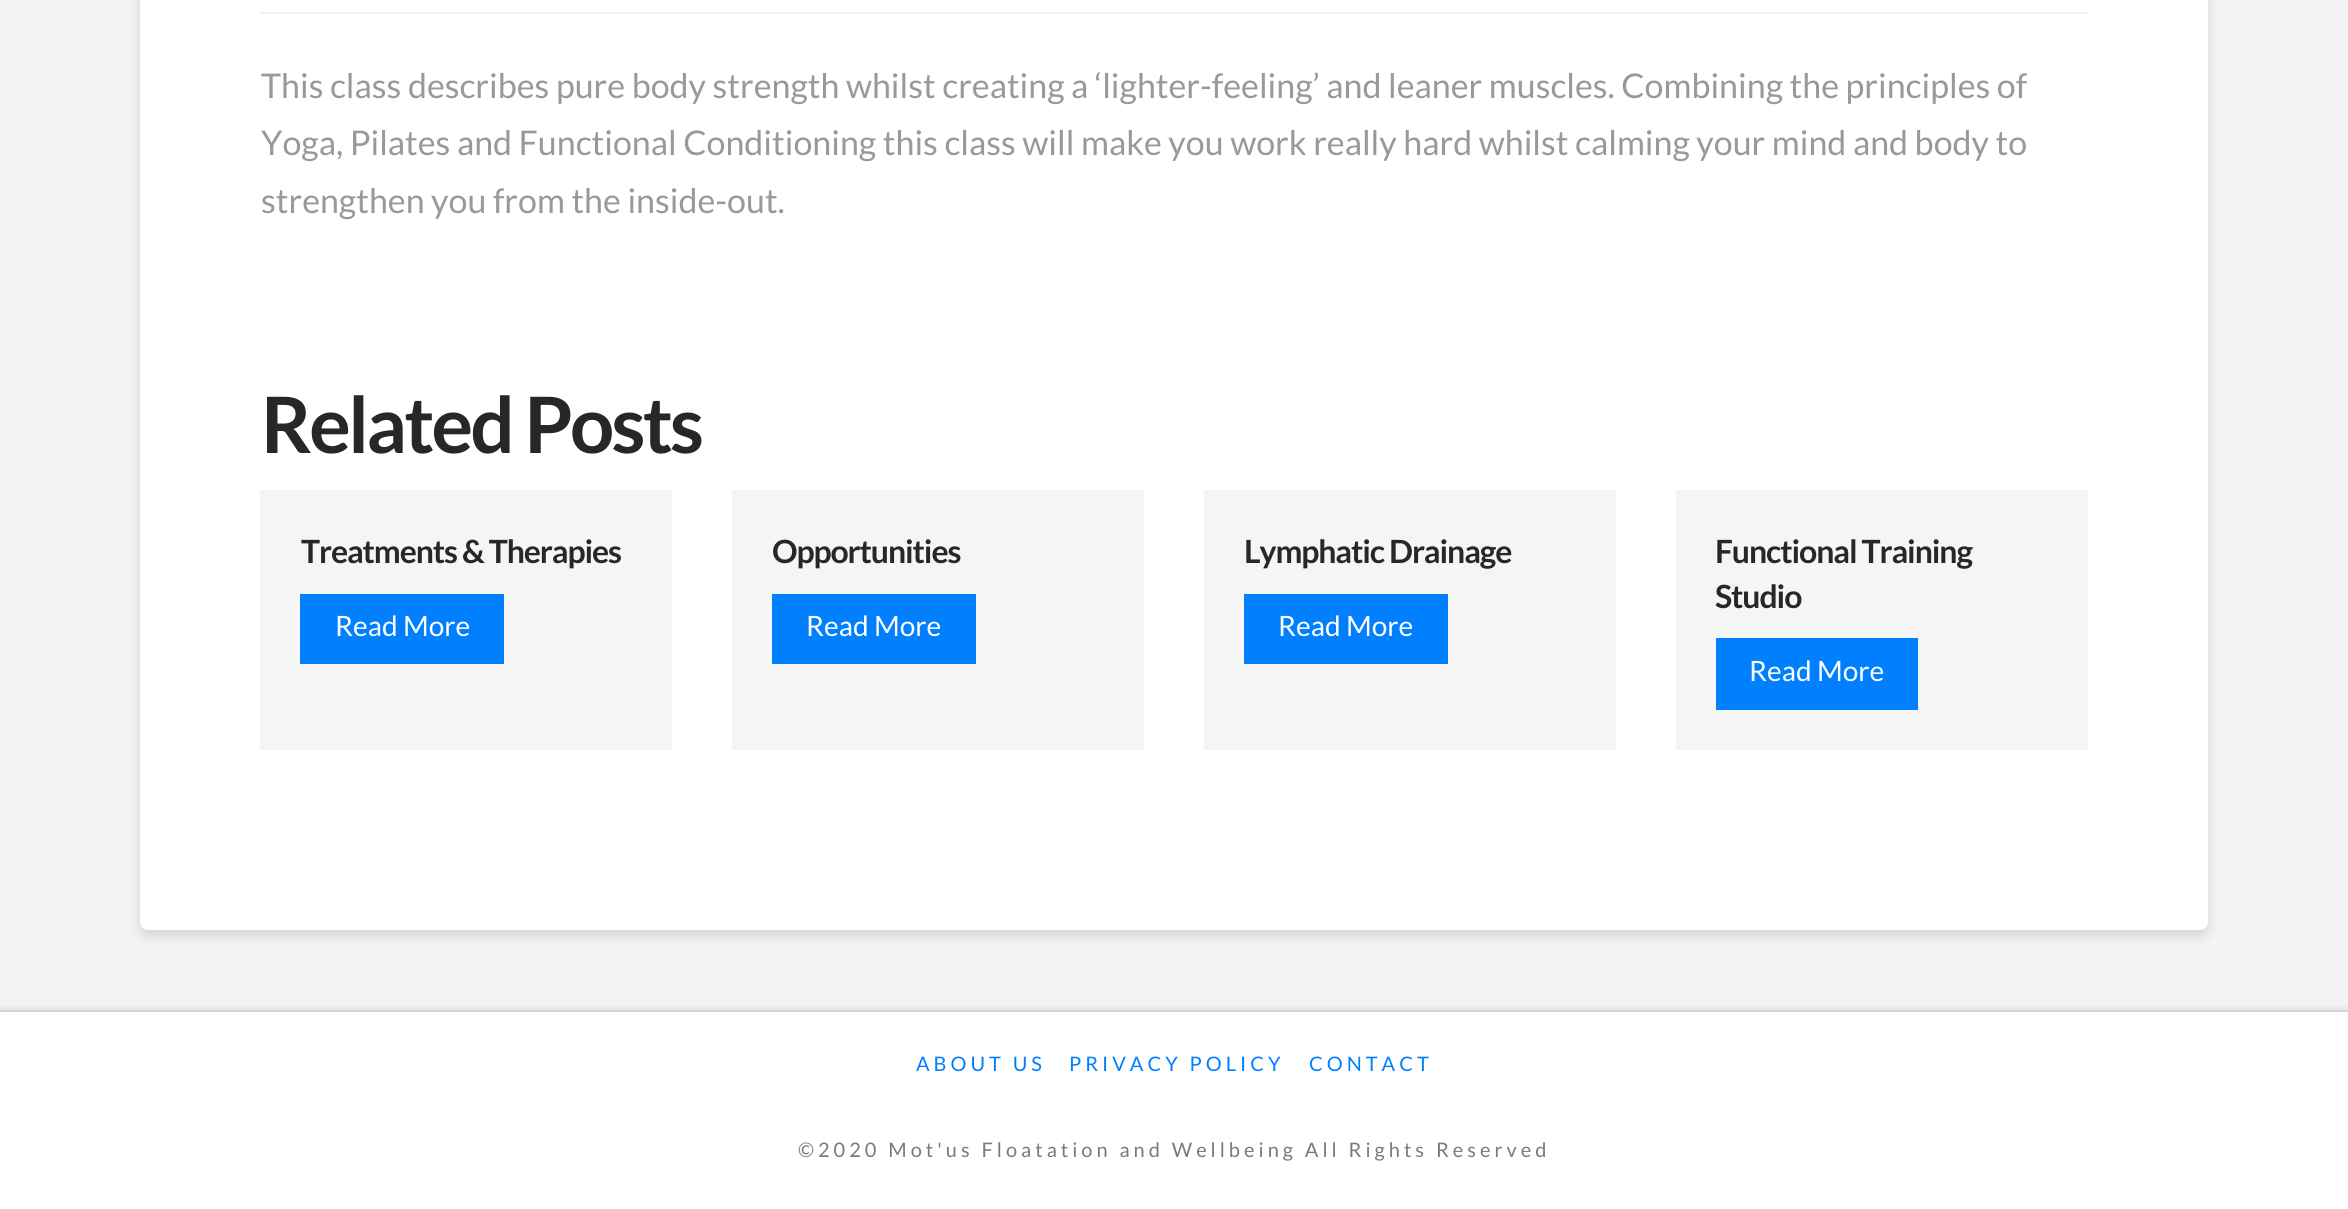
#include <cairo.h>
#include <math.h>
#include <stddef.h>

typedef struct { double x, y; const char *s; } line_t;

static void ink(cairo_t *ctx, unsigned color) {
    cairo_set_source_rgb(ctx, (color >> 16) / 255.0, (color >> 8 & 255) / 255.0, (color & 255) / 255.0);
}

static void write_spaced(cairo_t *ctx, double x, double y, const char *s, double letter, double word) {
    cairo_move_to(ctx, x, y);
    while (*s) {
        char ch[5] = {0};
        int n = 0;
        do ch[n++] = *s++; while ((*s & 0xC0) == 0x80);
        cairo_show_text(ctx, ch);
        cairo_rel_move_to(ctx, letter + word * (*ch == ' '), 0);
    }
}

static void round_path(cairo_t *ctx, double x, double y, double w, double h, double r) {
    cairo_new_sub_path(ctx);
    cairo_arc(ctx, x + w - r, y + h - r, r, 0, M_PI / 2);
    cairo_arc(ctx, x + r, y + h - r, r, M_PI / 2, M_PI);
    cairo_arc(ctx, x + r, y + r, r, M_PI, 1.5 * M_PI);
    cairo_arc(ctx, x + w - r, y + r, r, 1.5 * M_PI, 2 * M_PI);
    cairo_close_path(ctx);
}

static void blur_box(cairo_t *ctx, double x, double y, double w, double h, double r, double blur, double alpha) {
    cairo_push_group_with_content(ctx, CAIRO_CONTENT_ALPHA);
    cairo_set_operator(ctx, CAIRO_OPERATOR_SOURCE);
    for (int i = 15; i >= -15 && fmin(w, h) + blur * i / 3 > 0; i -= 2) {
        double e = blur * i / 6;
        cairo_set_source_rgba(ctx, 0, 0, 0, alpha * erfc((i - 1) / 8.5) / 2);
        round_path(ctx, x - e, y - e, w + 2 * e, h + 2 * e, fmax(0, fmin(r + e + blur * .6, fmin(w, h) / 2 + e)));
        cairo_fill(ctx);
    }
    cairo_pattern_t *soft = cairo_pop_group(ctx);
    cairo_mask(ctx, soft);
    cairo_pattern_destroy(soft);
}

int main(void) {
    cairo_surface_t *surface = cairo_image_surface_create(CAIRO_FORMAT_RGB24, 2348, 1209);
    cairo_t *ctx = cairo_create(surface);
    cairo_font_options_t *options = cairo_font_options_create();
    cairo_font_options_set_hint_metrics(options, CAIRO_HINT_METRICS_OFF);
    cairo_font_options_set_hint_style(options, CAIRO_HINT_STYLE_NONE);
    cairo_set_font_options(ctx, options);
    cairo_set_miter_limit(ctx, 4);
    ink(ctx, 0xF3F3F3);
    cairo_paint(ctx);
    ink(ctx, 0x000000);
    blur_box(ctx, 140, -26, 2068, 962, 8, 6, 0.13);
    ink(ctx, 0xFFFFFF);
    round_path(ctx, 140, -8, 2068, 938, 8);
    cairo_fill(ctx);
    ink(ctx, 0xF2F2F2);
    cairo_rectangle(ctx, 260, 12, 1828, 2);
    cairo_fill(ctx);
    cairo_select_font_face(ctx, "Lato", CAIRO_FONT_SLANT_NORMAL, CAIRO_FONT_WEIGHT_NORMAL);
    cairo_set_font_size(ctx, 34);
    ink(ctx, 0x999999);
    {
        static const line_t items[] = {
            {261, 98, "This class describes pure body strength whilst creating a ‘lighter-feeling’ and leaner muscles. Combining the principles of"},
            {261, 155, "Yoga, Pilates and Functional Conditioning this class will make you work really hard whilst calming your mind and body to"},
            {261, 213, "strengthen you from the inside-out."},
        };
        for (size_t i = 0; i < sizeof items / sizeof *items; i++) {
            cairo_move_to(ctx, items[i].x, items[i].y);
            cairo_show_text(ctx, items[i].s);
        }
    }
    cairo_select_font_face(ctx, "Lato", CAIRO_FONT_SLANT_NORMAL, CAIRO_FONT_WEIGHT_BOLD);
    cairo_set_font_size(ctx, 77.75);
    ink(ctx, 0x272727);
    write_spaced(ctx, 261, 453, "Related Posts", -2.75, 0);
    ink(ctx, 0xF5F5F5);
    cairo_rectangle(ctx, 260, 490, 412, 260);
    cairo_fill(ctx);
    cairo_set_font_size(ctx, 32);
    ink(ctx, 0x272727);
    write_spaced(ctx, 301, 563, "Treatments & Therapies", -1.1, 0);
    ink(ctx, 0x007FFF);
    cairo_rectangle(ctx, 300, 594, 204, 70);
    cairo_fill(ctx);
    cairo_select_font_face(ctx, "Lato", CAIRO_FONT_SLANT_NORMAL, CAIRO_FONT_WEIGHT_NORMAL);
    cairo_set_font_size(ctx, 28);
    ink(ctx, 0xFFFFFF);
    cairo_move_to(ctx, 335, 636);
    cairo_show_text(ctx, "Read More");
    ink(ctx, 0xF5F5F5);
    cairo_rectangle(ctx, 732, 490, 412, 260);
    cairo_fill(ctx);
    cairo_select_font_face(ctx, "Lato", CAIRO_FONT_SLANT_NORMAL, CAIRO_FONT_WEIGHT_BOLD);
    cairo_set_font_size(ctx, 32);
    ink(ctx, 0x272727);
    write_spaced(ctx, 772, 563, "Opportunities", -1.1, 0);
    ink(ctx, 0x007FFF);
    cairo_rectangle(ctx, 772, 594, 204, 70);
    cairo_fill(ctx);
    cairo_select_font_face(ctx, "Lato", CAIRO_FONT_SLANT_NORMAL, CAIRO_FONT_WEIGHT_NORMAL);
    cairo_set_font_size(ctx, 28);
    ink(ctx, 0xFFFFFF);
    cairo_move_to(ctx, 806, 636);
    cairo_show_text(ctx, "Read More");
    ink(ctx, 0xF5F5F5);
    cairo_rectangle(ctx, 1204, 490, 412, 260);
    cairo_fill(ctx);
    cairo_select_font_face(ctx, "Lato", CAIRO_FONT_SLANT_NORMAL, CAIRO_FONT_WEIGHT_BOLD);
    cairo_set_font_size(ctx, 32);
    ink(ctx, 0x272727);
    write_spaced(ctx, 1244, 563, "Lymphatic Drainage", -1.1, 0);
    ink(ctx, 0x007FFF);
    cairo_rectangle(ctx, 1244, 594, 204, 70);
    cairo_fill(ctx);
    cairo_select_font_face(ctx, "Lato", CAIRO_FONT_SLANT_NORMAL, CAIRO_FONT_WEIGHT_NORMAL);
    cairo_set_font_size(ctx, 28);
    ink(ctx, 0xFFFFFF);
    cairo_move_to(ctx, 1278, 636);
    cairo_show_text(ctx, "Read More");
    ink(ctx, 0xF5F5F5);
    cairo_rectangle(ctx, 1676, 490, 412, 260);
    cairo_fill(ctx);
    cairo_select_font_face(ctx, "Lato", CAIRO_FONT_SLANT_NORMAL, CAIRO_FONT_WEIGHT_BOLD);
    cairo_set_font_size(ctx, 32);
    ink(ctx, 0x272727);
    write_spaced(ctx, 1715, 563, "Functional Training", -1.1, 0);
    write_spaced(ctx, 1715, 608, "Studio", -1.1, 0);
    ink(ctx, 0x007FFF);
    cairo_rectangle(ctx, 1716, 638, 202, 72);
    cairo_fill(ctx);
    cairo_select_font_face(ctx, "Lato", CAIRO_FONT_SLANT_NORMAL, CAIRO_FONT_WEIGHT_NORMAL);
    cairo_set_font_size(ctx, 28);
    ink(ctx, 0xFFFFFF);
    cairo_move_to(ctx, 1749, 681);
    cairo_show_text(ctx, "Read More");
    ink(ctx, 0x000000);
    blur_box(ctx, 0, 1008, 2348, 200, 0, 2.5, 0.07);
    ink(ctx, 0xFFFFFF);
    cairo_rectangle(ctx, 0, 1012, 2348, 197);
    cairo_fill(ctx);
    ink(ctx, 0xD4D4D4);
    cairo_rectangle(ctx, 0, 1010, 2348, 2);
    cairo_fill(ctx);
    cairo_set_font_size(ctx, 20);
    ink(ctx, 0x007FFF);
    {
        static const line_t items[] = {
            {916, 1071, "ABOUT US"},
            {1069, 1071, "PRIVACY POLICY"},
            {1309, 1071, "CONTACT"},
        };
        for (size_t i = 0; i < sizeof items / sizeof *items; i++) {
            write_spaced(ctx, items[i].x, items[i].y, items[i].s, 4, 0);
        }
    }
    ink(ctx, 0x7A7A7A);
    write_spaced(ctx, 798, 1157, "©2020 Mot'us Floatation and Wellbeing All Rights Reserved", 4, 0);
    cairo_surface_write_to_png(surface, "image.png");
    cairo_font_options_destroy(options);
    cairo_destroy(ctx);
    cairo_surface_destroy(surface);
    return 0;
}
